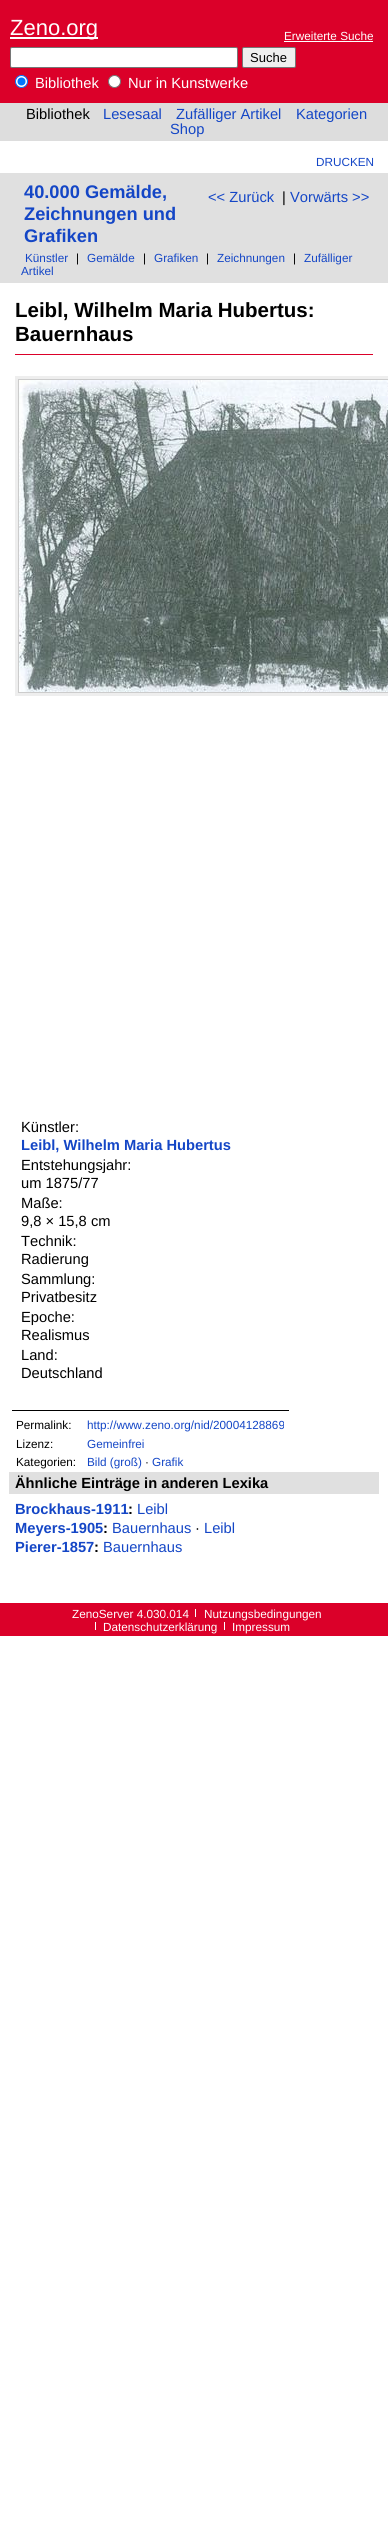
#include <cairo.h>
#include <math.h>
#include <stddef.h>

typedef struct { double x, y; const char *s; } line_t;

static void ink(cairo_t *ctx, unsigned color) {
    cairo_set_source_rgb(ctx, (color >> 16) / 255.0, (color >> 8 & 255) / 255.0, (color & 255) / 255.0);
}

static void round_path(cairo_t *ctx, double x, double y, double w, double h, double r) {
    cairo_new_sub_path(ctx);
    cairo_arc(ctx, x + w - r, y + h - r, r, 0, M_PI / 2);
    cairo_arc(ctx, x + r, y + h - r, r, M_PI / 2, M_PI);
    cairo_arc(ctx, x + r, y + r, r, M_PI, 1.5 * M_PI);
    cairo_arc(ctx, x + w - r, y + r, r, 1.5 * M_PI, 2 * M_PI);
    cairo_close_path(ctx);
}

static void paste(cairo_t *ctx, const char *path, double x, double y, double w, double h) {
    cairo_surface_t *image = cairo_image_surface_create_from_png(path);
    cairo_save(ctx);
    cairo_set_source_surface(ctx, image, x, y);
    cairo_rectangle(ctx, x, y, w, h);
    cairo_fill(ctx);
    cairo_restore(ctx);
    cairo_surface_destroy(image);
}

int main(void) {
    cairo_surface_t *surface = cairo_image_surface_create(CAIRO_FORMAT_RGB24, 388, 2524);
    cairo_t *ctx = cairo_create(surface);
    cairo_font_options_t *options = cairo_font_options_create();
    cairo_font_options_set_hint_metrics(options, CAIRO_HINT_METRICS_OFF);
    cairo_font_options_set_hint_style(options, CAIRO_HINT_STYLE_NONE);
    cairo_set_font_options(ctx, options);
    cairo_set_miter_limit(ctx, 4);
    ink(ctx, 0xFFFFFF);
    cairo_paint(ctx);
    ink(ctx, 0xDB0029);
    cairo_rectangle(ctx, 0, 0, 388, 103);
    cairo_fill(ctx);
    ink(ctx, 0xFFFFFF);
    cairo_rectangle(ctx, 10, 37, 88, 2);
    cairo_fill(ctx);
    cairo_select_font_face(ctx, "Liberation Sans", CAIRO_FONT_SLANT_NORMAL, CAIRO_FONT_WEIGHT_NORMAL);
    cairo_set_font_size(ctx, 22);
    cairo_move_to(ctx, 10, 35);
    cairo_show_text(ctx, "Zeno.org");
    cairo_set_font_size(ctx, 11.75);
    cairo_move_to(ctx, 284, 40);
    cairo_show_text(ctx, "Erweiterte Suche");
    cairo_rectangle(ctx, 284, 41, 89, 1);
    cairo_fill(ctx);
    round_path(ctx, 10.5, 47.5, 227, 20, 1.5);
    cairo_fill_preserve(ctx);
    ink(ctx, 0x767676);
    cairo_set_line_width(ctx, 1);
    cairo_stroke(ctx);
    ink(ctx, 0xEFEFEF);
    round_path(ctx, 242.5, 47.5, 53, 20, 1.5);
    cairo_fill_preserve(ctx);
    ink(ctx, 0x767676);
    cairo_stroke(ctx);
    cairo_set_font_size(ctx, 13);
    ink(ctx, 0x000000);
    cairo_move_to(ctx, 250, 62);
    cairo_show_text(ctx, "Suche");
    ink(ctx, 0xFFFFFF);
    cairo_new_path(ctx);
    cairo_arc(ctx, 21.5, 81.5, 6, 0, 2 * M_PI);
    cairo_fill_preserve(ctx);
    ink(ctx, 0x0075FF);
    cairo_stroke(ctx);
    cairo_arc(ctx, 21.5, 81.5, 4, 0, 2 * M_PI);
    cairo_fill(ctx);
    cairo_set_font_size(ctx, 14.7);
    ink(ctx, 0xFFFFFF);
    cairo_move_to(ctx, 35, 88);
    cairo_show_text(ctx, "Bibliothek");
    cairo_new_path(ctx);
    cairo_arc(ctx, 114.5, 81.5, 6, 0, 2 * M_PI);
    cairo_fill_preserve(ctx);
    ink(ctx, 0x767676);
    cairo_stroke(ctx);
    ink(ctx, 0xFFFFFF);
    cairo_move_to(ctx, 128, 88);
    cairo_show_text(ctx, "Nur in Kunstwerke");
    ink(ctx, 0xDDDDDD);
    cairo_rectangle(ctx, 0, 103, 388, 38);
    cairo_fill(ctx);
    ink(ctx, 0x000000);
    cairo_move_to(ctx, 26, 119);
    cairo_show_text(ctx, "Bibliothek");
    ink(ctx, 0x1446C6);
    {
        static const line_t items[] = {
            {103, 119, "Lesesaal"},
            {176, 119, "Zufälliger Artikel"},
            {296, 119, "Kategorien"},
            {170, 134, "Shop"},
        };
        for (size_t i = 0; i < sizeof items / sizeof *items; i++) {
            cairo_move_to(ctx, items[i].x, items[i].y);
            cairo_show_text(ctx, items[i].s);
        }
    }
    cairo_set_font_size(ctx, 11.75);
    cairo_move_to(ctx, 316, 166);
    cairo_show_text(ctx, "DRUCKEN");
    ink(ctx, 0xE0E0E0);
    cairo_rectangle(ctx, 0, 173, 388, 110);
    cairo_fill(ctx);
    cairo_select_font_face(ctx, "Liberation Sans", CAIRO_FONT_SLANT_NORMAL, CAIRO_FONT_WEIGHT_BOLD);
    cairo_set_font_size(ctx, 18.25);
    ink(ctx, 0x1446C6);
    {
        static const line_t items[] = {
            {24, 198, "40.000 Gemälde,"},
            {24, 220, "Zeichnungen und"},
            {24, 242, "Grafiken"},
        };
        for (size_t i = 0; i < sizeof items / sizeof *items; i++) {
            cairo_move_to(ctx, items[i].x, items[i].y);
            cairo_show_text(ctx, items[i].s);
        }
    }
    cairo_select_font_face(ctx, "Liberation Sans", CAIRO_FONT_SLANT_NORMAL, CAIRO_FONT_WEIGHT_NORMAL);
    cairo_set_font_size(ctx, 14.7);
    cairo_move_to(ctx, 208, 202);
    cairo_show_text(ctx, "<< Zurück");
    ink(ctx, 0x000000);
    cairo_move_to(ctx, 282, 202);
    cairo_show_text(ctx, "|");
    ink(ctx, 0x1446C6);
    cairo_move_to(ctx, 290, 202);
    cairo_show_text(ctx, "Vorwärts >>");
    cairo_set_font_size(ctx, 11.75);
    cairo_move_to(ctx, 25, 262);
    cairo_show_text(ctx, "Künstler");
    ink(ctx, 0x000000);
    cairo_move_to(ctx, 76, 262);
    cairo_show_text(ctx, "|");
    ink(ctx, 0x1446C6);
    cairo_move_to(ctx, 87, 262);
    cairo_show_text(ctx, "Gemälde");
    ink(ctx, 0x000000);
    cairo_move_to(ctx, 143, 262);
    cairo_show_text(ctx, "|");
    ink(ctx, 0x1446C6);
    cairo_move_to(ctx, 154, 262);
    cairo_show_text(ctx, "Grafiken");
    ink(ctx, 0x000000);
    cairo_move_to(ctx, 206, 262);
    cairo_show_text(ctx, "|");
    ink(ctx, 0x1446C6);
    cairo_move_to(ctx, 217, 262);
    cairo_show_text(ctx, "Zeichnungen");
    ink(ctx, 0x000000);
    cairo_move_to(ctx, 293, 262);
    cairo_show_text(ctx, "|");
    ink(ctx, 0x1446C6);
    cairo_move_to(ctx, 304, 262);
    cairo_show_text(ctx, "Zufälliger");
    cairo_move_to(ctx, 21, 275);
    cairo_show_text(ctx, "Artikel");
    ink(ctx, 0xDB0029);
    cairo_rectangle(ctx, 15, 354, 358, 1);
    cairo_fill(ctx);
    cairo_select_font_face(ctx, "Liberation Sans", CAIRO_FONT_SLANT_NORMAL, CAIRO_FONT_WEIGHT_BOLD);
    cairo_set_font_size(ctx, 20.5);
    ink(ctx, 0x000000);
    cairo_move_to(ctx, 15, 317);
    cairo_show_text(ctx, "Leibl, Wilhelm Maria Hubertus:");
    cairo_move_to(ctx, 15, 341);
    cairo_show_text(ctx, "Bauernhaus");
    ink(ctx, 0xEEEEEE);
    cairo_rectangle(ctx, 15, 376, 373, 320);
    cairo_fill(ctx);
    cairo_rectangle(ctx, 18.5, 379.5, 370, 313);
    ink(ctx, 0xCCCCCC);
    cairo_stroke(ctx);
    paste(ctx, "media/1.png", 19, 380, 369, 312);
    cairo_select_font_face(ctx, "Liberation Sans", CAIRO_FONT_SLANT_NORMAL, CAIRO_FONT_WEIGHT_NORMAL);
    cairo_set_font_size(ctx, 14.7);
    ink(ctx, 0x000000);
    cairo_move_to(ctx, 21, 1132);
    cairo_show_text(ctx, "Künstler:");
    cairo_select_font_face(ctx, "Liberation Sans", CAIRO_FONT_SLANT_NORMAL, CAIRO_FONT_WEIGHT_BOLD);
    ink(ctx, 0x1446C6);
    cairo_move_to(ctx, 21, 1150);
    cairo_show_text(ctx, "Leibl, Wilhelm Maria Hubertus");
    cairo_select_font_face(ctx, "Liberation Sans", CAIRO_FONT_SLANT_NORMAL, CAIRO_FONT_WEIGHT_NORMAL);
    ink(ctx, 0x000000);
    {
        static const line_t items[] = {
            {21, 1170, "Entstehungsjahr:"},
            {21, 1188, "um 1875/77"},
            {21, 1208, "Maße:"},
            {21, 1226, "9,8 × 15,8 cm"},
            {21, 1246, "Technik:"},
            {21, 1264, "Radierung"},
            {21, 1284, "Sammlung:"},
            {21, 1302, "Privatbesitz"},
            {21, 1322, "Epoche:"},
            {21, 1340, "Realismus"},
            {21, 1360, "Land:"},
            {21, 1378, "Deutschland"},
        };
        for (size_t i = 0; i < sizeof items / sizeof *items; i++) {
            cairo_move_to(ctx, items[i].x, items[i].y);
            cairo_show_text(ctx, items[i].s);
        }
    }
    cairo_rectangle(ctx, 12, 1410, 277, 1);
    cairo_fill(ctx);
    cairo_set_font_size(ctx, 11.75);
    cairo_move_to(ctx, 16, 1429);
    cairo_show_text(ctx, "Permalink:");
    ink(ctx, 0x1446C6);
    cairo_move_to(ctx, 87, 1429);
    cairo_show_text(ctx, "http://www.zeno.org/nid/20004128869");
    ink(ctx, 0x000000);
    cairo_move_to(ctx, 16, 1448);
    cairo_show_text(ctx, "Lizenz:");
    ink(ctx, 0x1446C6);
    cairo_move_to(ctx, 87, 1448);
    cairo_show_text(ctx, "Gemeinfrei");
    ink(ctx, 0x000000);
    cairo_move_to(ctx, 16, 1466);
    cairo_show_text(ctx, "Kategorien:");
    ink(ctx, 0x1446C6);
    cairo_move_to(ctx, 87, 1466);
    cairo_show_text(ctx, "Bild (groß)");
    ink(ctx, 0x000000);
    cairo_move_to(ctx, 145, 1466);
    cairo_show_text(ctx, "·");
    ink(ctx, 0x1446C6);
    cairo_move_to(ctx, 152, 1466);
    cairo_show_text(ctx, "Grafik");
    ink(ctx, 0xE0E0E0);
    cairo_rectangle(ctx, 9, 1472, 370, 22);
    cairo_fill(ctx);
    cairo_select_font_face(ctx, "Liberation Sans", CAIRO_FONT_SLANT_NORMAL, CAIRO_FONT_WEIGHT_BOLD);
    cairo_set_font_size(ctx, 14.7);
    ink(ctx, 0x000000);
    cairo_move_to(ctx, 15, 1488);
    cairo_show_text(ctx, "Ähnliche Einträge in anderen Lexika");
    ink(ctx, 0x1446C6);
    cairo_move_to(ctx, 15, 1514);
    cairo_show_text(ctx, "Brockhaus-1911");
    ink(ctx, 0x000000);
    cairo_move_to(ctx, 128, 1514);
    cairo_show_text(ctx, ":");
    cairo_select_font_face(ctx, "Liberation Sans", CAIRO_FONT_SLANT_NORMAL, CAIRO_FONT_WEIGHT_NORMAL);
    ink(ctx, 0x1446C6);
    cairo_move_to(ctx, 137, 1514);
    cairo_show_text(ctx, "Leibl");
    cairo_select_font_face(ctx, "Liberation Sans", CAIRO_FONT_SLANT_NORMAL, CAIRO_FONT_WEIGHT_BOLD);
    cairo_move_to(ctx, 15, 1533);
    cairo_show_text(ctx, "Meyers-1905");
    ink(ctx, 0x000000);
    cairo_move_to(ctx, 103, 1533);
    cairo_show_text(ctx, ":");
    cairo_select_font_face(ctx, "Liberation Sans", CAIRO_FONT_SLANT_NORMAL, CAIRO_FONT_WEIGHT_NORMAL);
    ink(ctx, 0x1446C6);
    cairo_move_to(ctx, 112, 1533);
    cairo_show_text(ctx, "Bauernhaus");
    ink(ctx, 0x000000);
    cairo_move_to(ctx, 195, 1533);
    cairo_show_text(ctx, "·");
    ink(ctx, 0x1446C6);
    cairo_move_to(ctx, 204, 1533);
    cairo_show_text(ctx, "Leibl");
    cairo_select_font_face(ctx, "Liberation Sans", CAIRO_FONT_SLANT_NORMAL, CAIRO_FONT_WEIGHT_BOLD);
    cairo_move_to(ctx, 15, 1552);
    cairo_show_text(ctx, "Pierer-1857");
    ink(ctx, 0x000000);
    cairo_move_to(ctx, 94, 1552);
    cairo_show_text(ctx, ":");
    cairo_select_font_face(ctx, "Liberation Sans", CAIRO_FONT_SLANT_NORMAL, CAIRO_FONT_WEIGHT_NORMAL);
    ink(ctx, 0x1446C6);
    cairo_move_to(ctx, 103, 1552);
    cairo_show_text(ctx, "Bauernhaus");
    ink(ctx, 0xDB0029);
    cairo_rectangle(ctx, 0, 1603, 388, 33);
    cairo_fill(ctx);
    cairo_set_font_size(ctx, 11.75);
    ink(ctx, 0xFFFFFF);
    cairo_move_to(ctx, 72, 1618);
    cairo_show_text(ctx, "ZenoServer 4.030.014");
    cairo_move_to(ctx, 204, 1618);
    cairo_show_text(ctx, "Nutzungsbedingungen");
    cairo_rectangle(ctx, 195, 1609, 1, 8);
    cairo_fill(ctx);
    cairo_move_to(ctx, 103, 1631);
    cairo_show_text(ctx, "Datenschutzerklärung");
    cairo_rectangle(ctx, 95, 1622, 1, 8);
    cairo_fill(ctx);
    cairo_move_to(ctx, 232, 1631);
    cairo_show_text(ctx, "Impressum");
    cairo_rectangle(ctx, 224, 1622, 1, 8);
    cairo_fill(ctx);
    cairo_surface_write_to_png(surface, "image.png");
    cairo_font_options_destroy(options);
    cairo_destroy(ctx);
    cairo_surface_destroy(surface);
    return 0;
}
